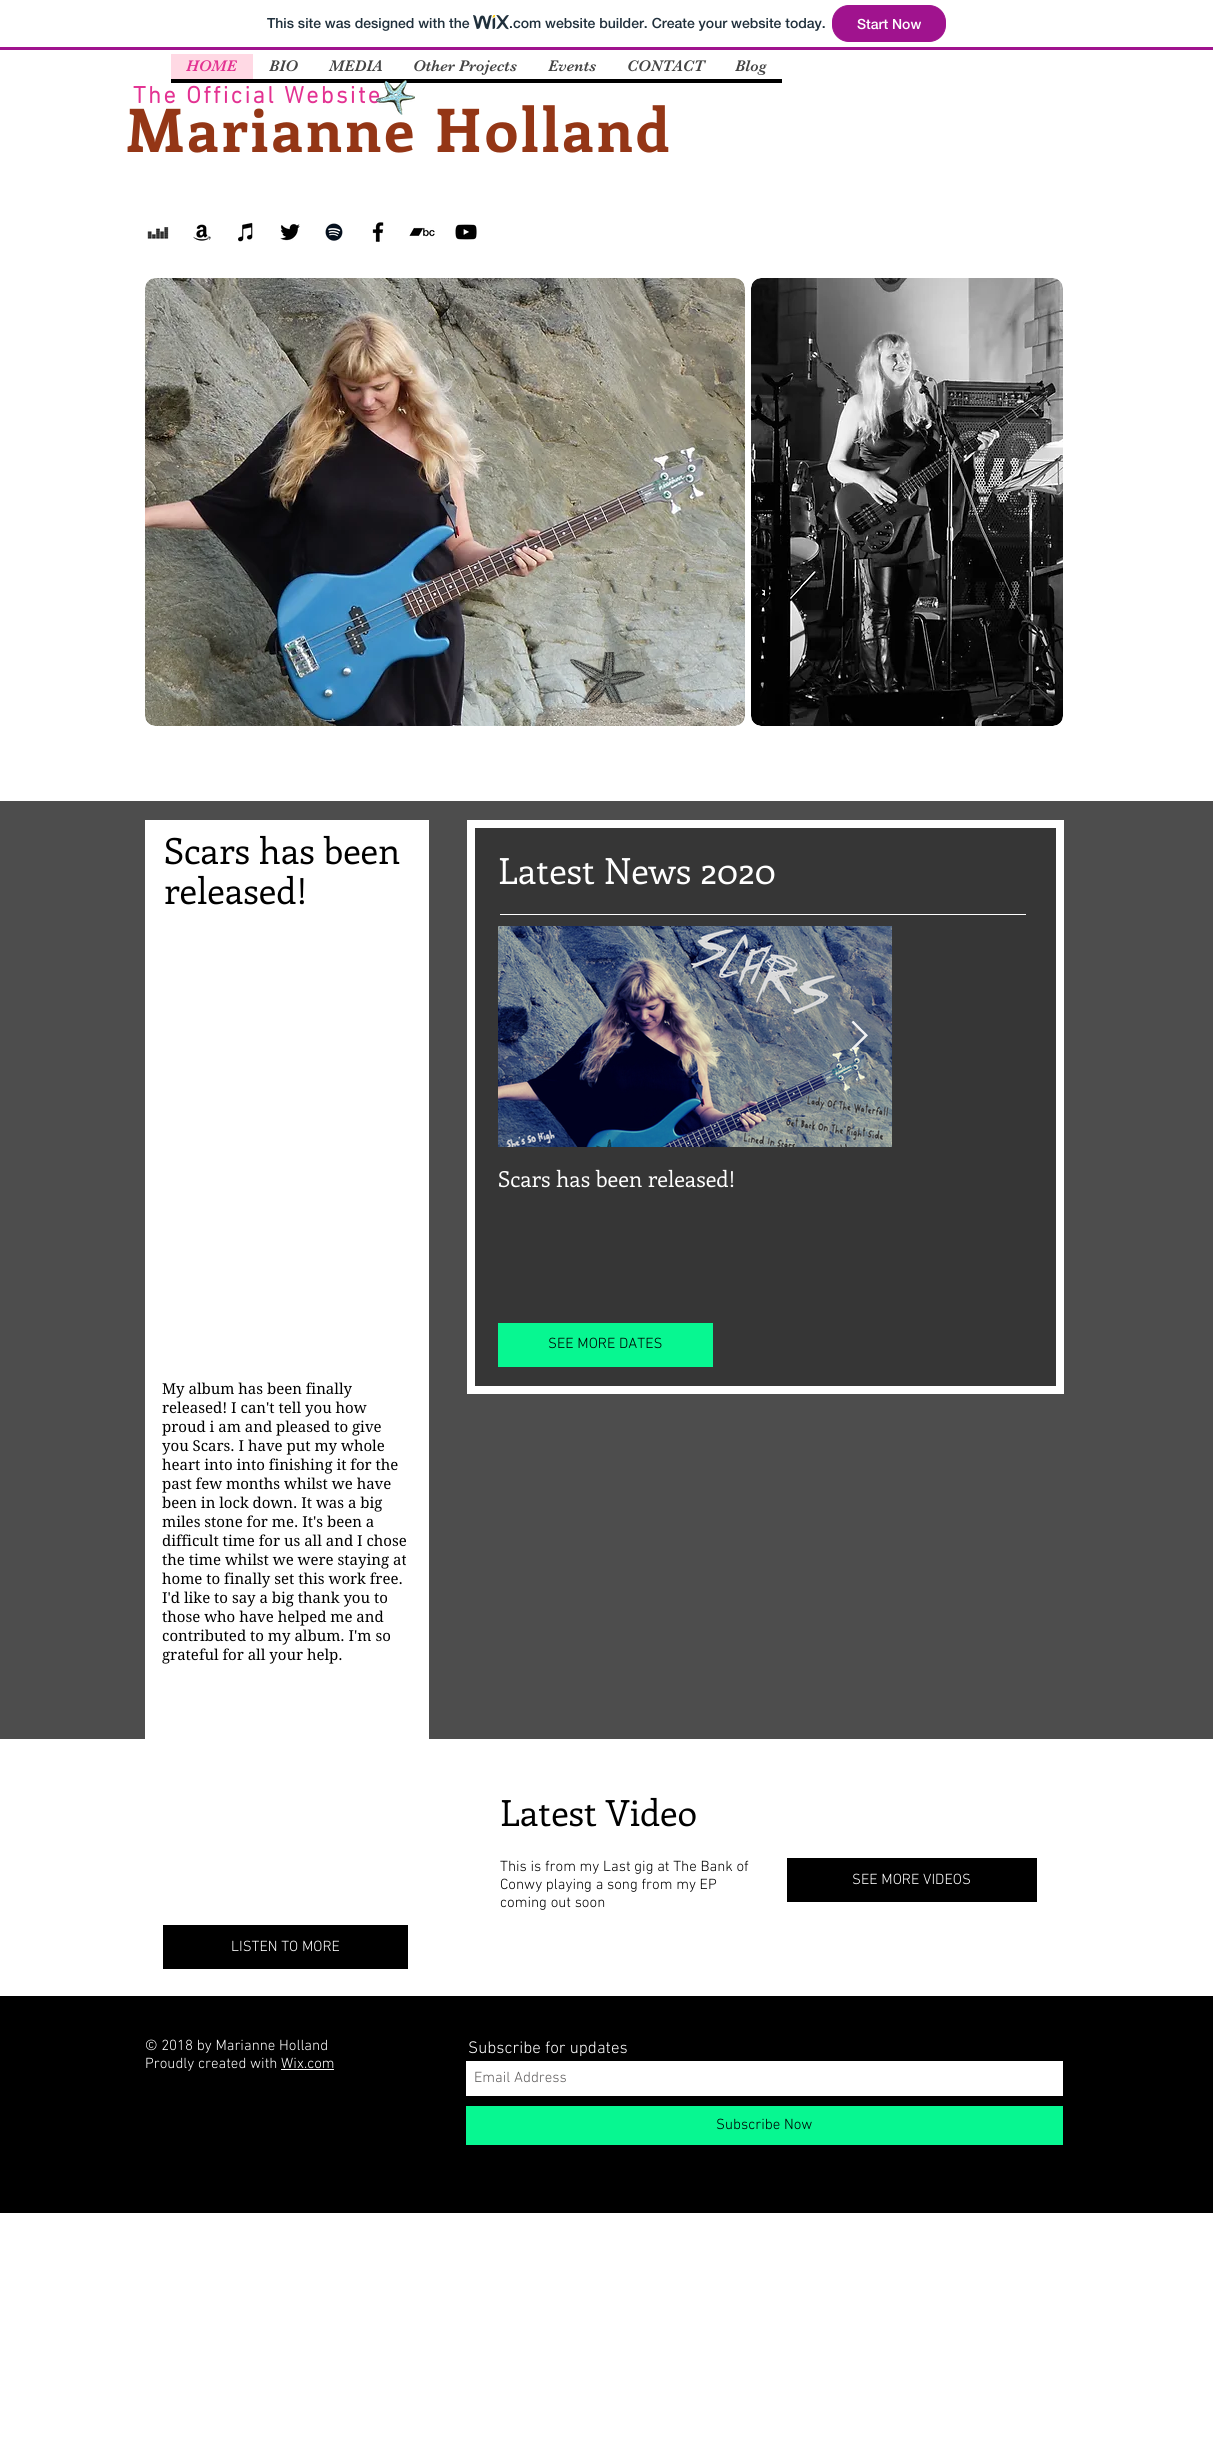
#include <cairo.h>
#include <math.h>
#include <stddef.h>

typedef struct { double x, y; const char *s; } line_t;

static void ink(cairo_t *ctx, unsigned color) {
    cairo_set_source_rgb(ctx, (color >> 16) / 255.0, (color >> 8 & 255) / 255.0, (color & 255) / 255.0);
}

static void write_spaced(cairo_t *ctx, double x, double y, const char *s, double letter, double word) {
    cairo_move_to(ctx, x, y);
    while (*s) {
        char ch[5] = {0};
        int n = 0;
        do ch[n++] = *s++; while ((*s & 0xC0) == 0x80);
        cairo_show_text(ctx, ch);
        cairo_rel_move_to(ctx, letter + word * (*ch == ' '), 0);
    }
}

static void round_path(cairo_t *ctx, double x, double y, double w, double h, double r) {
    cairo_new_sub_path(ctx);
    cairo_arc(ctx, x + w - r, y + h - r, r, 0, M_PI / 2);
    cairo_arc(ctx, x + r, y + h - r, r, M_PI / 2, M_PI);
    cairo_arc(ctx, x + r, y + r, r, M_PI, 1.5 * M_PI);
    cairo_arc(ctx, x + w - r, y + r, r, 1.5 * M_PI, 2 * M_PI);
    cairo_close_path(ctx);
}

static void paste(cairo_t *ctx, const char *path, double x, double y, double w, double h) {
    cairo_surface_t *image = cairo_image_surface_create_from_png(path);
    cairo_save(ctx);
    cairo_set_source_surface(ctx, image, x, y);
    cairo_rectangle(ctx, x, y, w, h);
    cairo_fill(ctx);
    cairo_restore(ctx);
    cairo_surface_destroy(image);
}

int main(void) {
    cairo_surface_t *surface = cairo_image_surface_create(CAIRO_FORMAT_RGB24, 1213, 2437);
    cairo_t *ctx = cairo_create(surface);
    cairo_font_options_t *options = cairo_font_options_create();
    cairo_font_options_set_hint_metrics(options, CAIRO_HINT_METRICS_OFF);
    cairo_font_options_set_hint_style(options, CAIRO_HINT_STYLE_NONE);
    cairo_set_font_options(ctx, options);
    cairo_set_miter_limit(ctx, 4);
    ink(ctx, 0xFFFFFF);
    cairo_paint(ctx);
    ink(ctx, 0xA0138E);
    cairo_rectangle(ctx, 0, 47, 1213, 3);
    cairo_fill(ctx);
    cairo_select_font_face(ctx, "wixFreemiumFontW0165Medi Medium", CAIRO_FONT_SLANT_NORMAL, CAIRO_FONT_WEIGHT_NORMAL);
    cairo_set_font_size(ctx, 14);
    ink(ctx, 0x20303C);
    cairo_move_to(ctx, 267, 28);
    cairo_show_text(ctx, "This site was designed with the");
    paste(ctx, "media/1.png", 473, 15, 36, 15);
    cairo_move_to(ctx, 509, 28);
    cairo_show_text(ctx, ".com website builder. Create your website today.");
    ink(ctx, 0xA0138E);
    round_path(ctx, 832.5, 5.5, 113, 36, 16.5);
    cairo_fill_preserve(ctx);
    cairo_set_line_width(ctx, 1);
    cairo_stroke(ctx);
    ink(ctx, 0xFFFFFF);
    cairo_move_to(ctx, 857, 29);
    cairo_show_text(ctx, "Start Now");
    ink(ctx, 0x000000);
    cairo_rectangle(ctx, 171, 79, 611, 4);
    cairo_fill(ctx);
    ink(ctx, 0xFFD9E4);
    cairo_rectangle(ctx, 171, 54, 82, 25);
    cairo_fill(ctx);
    cairo_select_font_face(ctx, "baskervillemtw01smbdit", CAIRO_FONT_SLANT_NORMAL, CAIRO_FONT_WEIGHT_NORMAL);
    cairo_set_font_size(ctx, 16);
    ink(ctx, 0xE33292);
    cairo_move_to(ctx, 186, 71);
    cairo_show_text(ctx, "HOME");
    ink(ctx, 0x444444);
    {
        static const line_t items[] = {
            {269, 71, "BIO"},
            {329, 71, "MEDIA"},
            {413, 71, "Other Projects"},
            {548, 71, "Events"},
            {627, 71, "CONTACT"},
            {735, 71, "Blog"},
        };
        for (size_t i = 0; i < sizeof items / sizeof *items; i++) {
            cairo_move_to(ctx, items[i].x, items[i].y);
            cairo_show_text(ctx, items[i].s);
        }
    }
    cairo_select_font_face(ctx, "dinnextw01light", CAIRO_FONT_SLANT_NORMAL, CAIRO_FONT_WEIGHT_BOLD);
    cairo_set_font_size(ctx, 24);
    ink(ctx, 0xE33292);
    write_spaced(ctx, 133, 103, "The Official Website", 2.4, 0);
    cairo_select_font_face(ctx, "Enriqueta", CAIRO_FONT_SLANT_NORMAL, CAIRO_FONT_WEIGHT_BOLD);
    cairo_set_font_size(ctx, 60);
    ink(ctx, 0x943616);
    write_spaced(ctx, 126, 152, "Marianne Holland", 3, 0);
    paste(ctx, "media/2.png", 376, 80, 39, 35);
    paste(ctx, "media/3.png", 147, 227, 22, 12);
    paste(ctx, "media/4.png", 193, 224, 18, 17);
    paste(ctx, "media/5.png", 238, 222, 15, 20);
    paste(ctx, "media/6.png", 280, 224, 20, 17);
    paste(ctx, "media/7.png", 325, 223, 18, 18);
    paste(ctx, "media/8.png", 372, 222, 12, 20);
    paste(ctx, "media/9.png", 409, 227, 26, 10);
    paste(ctx, "media/10.png", 455, 224, 22, 16);
    paste(ctx, "media/11.png", 145, 278, 600, 448);
    paste(ctx, "media/12.png", 751, 278, 312, 448);
    paste(ctx, "media/13.png", 570, 652, 75, 51);
    ink(ctx, 0x4D4D4D);
    cairo_rectangle(ctx, 0, 801, 1213, 938);
    cairo_fill(ctx);
    ink(ctx, 0xFFFFFF);
    cairo_rectangle(ctx, 145, 820, 284, 919);
    cairo_fill(ctx);
    cairo_select_font_face(ctx, "Enriqueta", CAIRO_FONT_SLANT_NORMAL, CAIRO_FONT_WEIGHT_NORMAL);
    cairo_set_font_size(ctx, 36);
    ink(ctx, 0x000000);
    cairo_move_to(ctx, 164, 864);
    cairo_show_text(ctx, "Scars has been");
    cairo_move_to(ctx, 164, 904);
    cairo_show_text(ctx, "released!");
    cairo_select_font_face(ctx, "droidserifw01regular", CAIRO_FONT_SLANT_NORMAL, CAIRO_FONT_WEIGHT_NORMAL);
    cairo_set_font_size(ctx, 15);
    {
        static const line_t items[] = {
            {162, 1394, "My album has been finally"},
            {162, 1413, "released! I can't tell you how"},
            {162, 1432, "proud i am and pleased to give"},
            {162, 1451, "you Scars. I have put my whole"},
            {162, 1470, "heart into into finishing it for the"},
            {162, 1489, "past few months whilst we have"},
            {162, 1508, "been in lock down. It was a big"},
            {162, 1527, "miles stone for me. It's been a"},
            {162, 1546, "difficult time for us all and I chose"},
            {162, 1565, "the time whilst we were staying at"},
            {162, 1584, "home to finally set this work free."},
            {162, 1603, "I'd like to say a big thank you to"},
            {162, 1622, "those who have helped me and"},
            {162, 1641, "contributed to my album. I'm so"},
            {162, 1660, "grateful for all your help."},
        };
        for (size_t i = 0; i < sizeof items / sizeof *items; i++) {
            cairo_move_to(ctx, items[i].x, items[i].y);
            cairo_show_text(ctx, items[i].s);
        }
    }
    cairo_rectangle(ctx, 163, 1925, 245, 44);
    cairo_fill(ctx);
    cairo_select_font_face(ctx, "dinnextw01light Light", CAIRO_FONT_SLANT_NORMAL, CAIRO_FONT_WEIGHT_NORMAL);
    ink(ctx, 0xFFFFFF);
    cairo_move_to(ctx, 231, 1951);
    cairo_show_text(ctx, "LISTEN TO MORE");
    ink(ctx, 0x363636);
    cairo_rectangle(ctx, 471, 824, 589, 566);
    cairo_fill_preserve(ctx);
    ink(ctx, 0xFFFFFF);
    cairo_set_line_width(ctx, 8);
    cairo_stroke(ctx);
    cairo_select_font_face(ctx, "Enriqueta", CAIRO_FONT_SLANT_NORMAL, CAIRO_FONT_WEIGHT_NORMAL);
    cairo_set_font_size(ctx, 36);
    cairo_move_to(ctx, 498, 884);
    cairo_show_text(ctx, "Latest News 2020");
    cairo_rectangle(ctx, 500, 914, 526, 1);
    cairo_fill(ctx);
    paste(ctx, "media/15.png", 498, 926, 394, 221);
    paste(ctx, "media/14.png", 851, 1021, 17, 29);
    cairo_set_font_size(ctx, 22);
    cairo_move_to(ctx, 498, 1187);
    cairo_show_text(ctx, "Scars has been released!");
    ink(ctx, 0x07F791);
    cairo_rectangle(ctx, 498, 1323, 215, 44);
    cairo_fill(ctx);
    cairo_select_font_face(ctx, "dinnextw01light Light", CAIRO_FONT_SLANT_NORMAL, CAIRO_FONT_WEIGHT_NORMAL);
    cairo_set_font_size(ctx, 15);
    ink(ctx, 0x000000);
    cairo_move_to(ctx, 548, 1348);
    cairo_show_text(ctx, "SEE MORE DATES");
    cairo_select_font_face(ctx, "Enriqueta", CAIRO_FONT_SLANT_NORMAL, CAIRO_FONT_WEIGHT_NORMAL);
    cairo_set_font_size(ctx, 36);
    cairo_move_to(ctx, 500, 1826);
    cairo_show_text(ctx, "Latest Video");
    cairo_select_font_face(ctx, "dinnextw01light Light", CAIRO_FONT_SLANT_NORMAL, CAIRO_FONT_WEIGHT_NORMAL);
    cairo_set_font_size(ctx, 15);
    {
        static const line_t items[] = {
            {500, 1871, "This is from my Last gig at The Bank of"},
            {500, 1889, "Conwy playing a song from my EP"},
            {500, 1907, "coming out soon"},
        };
        for (size_t i = 0; i < sizeof items / sizeof *items; i++) {
            cairo_move_to(ctx, items[i].x, items[i].y);
            cairo_show_text(ctx, items[i].s);
        }
    }
    cairo_rectangle(ctx, 787, 1858, 250, 44);
    cairo_fill(ctx);
    ink(ctx, 0xFFFFFF);
    cairo_move_to(ctx, 852, 1884);
    cairo_show_text(ctx, "SEE MORE VIDEOS");
    ink(ctx, 0x000000);
    cairo_rectangle(ctx, 0, 1996, 1213, 217);
    cairo_fill(ctx);
    ink(ctx, 0xFFFFFF);
    cairo_move_to(ctx, 145, 2050);
    cairo_show_text(ctx, "© 2018 by Marianne Holland");
    cairo_move_to(ctx, 145, 2068);
    cairo_show_text(ctx, "Proudly created with Wix.com");
    cairo_rectangle(ctx, 281, 2069, 53, 1);
    cairo_fill(ctx);
    cairo_set_font_size(ctx, 17);
    cairo_move_to(ctx, 468, 2053);
    cairo_show_text(ctx, "Subscribe for updates");
    cairo_rectangle(ctx, 466, 2061, 597, 35);
    cairo_fill(ctx);
    cairo_set_font_size(ctx, 15);
    ink(ctx, 0x605E5E);
    cairo_move_to(ctx, 474, 2082);
    cairo_show_text(ctx, "Email Address");
    ink(ctx, 0x07F791);
    cairo_rectangle(ctx, 466, 2106, 597, 39);
    cairo_fill(ctx);
    ink(ctx, 0x000000);
    cairo_move_to(ctx, 716, 2129);
    cairo_show_text(ctx, "Subscribe Now");
    cairo_surface_write_to_png(surface, "image.png");
    cairo_font_options_destroy(options);
    cairo_destroy(ctx);
    cairo_surface_destroy(surface);
    return 0;
}
